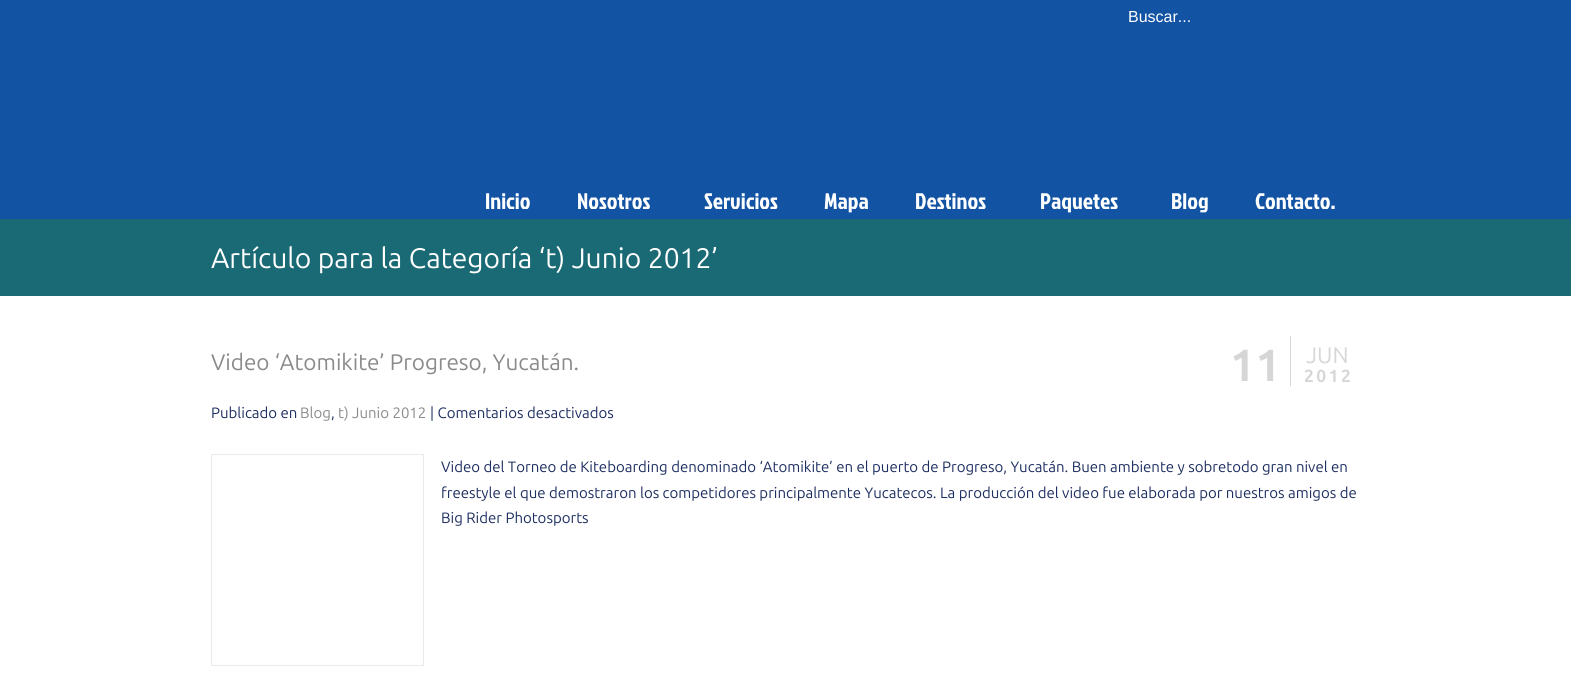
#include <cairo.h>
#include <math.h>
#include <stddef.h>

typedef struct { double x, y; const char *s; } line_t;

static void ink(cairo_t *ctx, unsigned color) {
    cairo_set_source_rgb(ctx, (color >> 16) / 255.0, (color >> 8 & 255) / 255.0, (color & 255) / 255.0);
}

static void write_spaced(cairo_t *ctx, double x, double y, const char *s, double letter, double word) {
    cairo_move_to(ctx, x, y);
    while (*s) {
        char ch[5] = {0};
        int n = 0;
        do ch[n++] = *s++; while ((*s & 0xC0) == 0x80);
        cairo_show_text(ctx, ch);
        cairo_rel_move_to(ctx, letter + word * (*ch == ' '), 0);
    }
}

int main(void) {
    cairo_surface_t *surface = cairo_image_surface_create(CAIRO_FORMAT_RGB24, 1571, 677);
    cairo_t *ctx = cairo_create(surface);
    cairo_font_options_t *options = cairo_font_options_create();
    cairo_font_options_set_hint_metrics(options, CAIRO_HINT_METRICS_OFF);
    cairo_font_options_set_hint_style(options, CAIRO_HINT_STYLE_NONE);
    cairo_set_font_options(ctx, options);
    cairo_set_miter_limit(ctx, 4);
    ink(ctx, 0x1253A3);
    cairo_paint(ctx);
    cairo_select_font_face(ctx, "Liberation Sans", CAIRO_FONT_SLANT_NORMAL, CAIRO_FONT_WEIGHT_NORMAL);
    cairo_set_font_size(ctx, 16);
    ink(ctx, 0xFFFFFF);
    cairo_move_to(ctx, 1128, 22);
    cairo_show_text(ctx, "Buscar...");
    cairo_select_font_face(ctx, "Jockey One", CAIRO_FONT_SLANT_NORMAL, CAIRO_FONT_WEIGHT_NORMAL);
    cairo_set_font_size(ctx, 22.5);
    {
        static const line_t items[] = {
            {485, 209, "Inicio"},
            {577, 209, "Nosotros"},
            {704, 209, "Servicios"},
            {824, 209, "Mapa"},
            {915, 209, "Destinos"},
            {1040, 209, "Paquetes"},
            {1171, 209, "Blog"},
            {1255, 209, "Contacto."},
        };
        for (size_t i = 0; i < sizeof items / sizeof *items; i++) {
            cairo_move_to(ctx, items[i].x, items[i].y);
            cairo_show_text(ctx, items[i].s);
        }
    }
    ink(ctx, 0x1A6A75);
    cairo_rectangle(ctx, 0, 219, 1571, 77);
    cairo_fill(ctx);
    cairo_select_font_face(ctx, "Ubuntu", CAIRO_FONT_SLANT_NORMAL, CAIRO_FONT_WEIGHT_NORMAL);
    cairo_set_font_size(ctx, 28.25);
    ink(ctx, 0xFFFFFF);
    cairo_move_to(ctx, 211, 268);
    cairo_show_text(ctx, "Artículo para la Categoría ‘t) Junio 2012’");
    cairo_rectangle(ctx, 0, 296, 1571, 381);
    cairo_fill(ctx);
    cairo_set_font_size(ctx, 22.5);
    ink(ctx, 0x8A8A8A);
    cairo_move_to(ctx, 211, 370);
    cairo_show_text(ctx, "Video ‘Atomikite’ Progreso, Yucatán.");
    ink(ctx, 0xD6D6D6);
    cairo_rectangle(ctx, 1290, 336, 1, 50);
    cairo_fill(ctx);
    cairo_select_font_face(ctx, "Ubuntu", CAIRO_FONT_SLANT_NORMAL, CAIRO_FONT_WEIGHT_BOLD);
    cairo_set_font_size(ctx, 45);
    cairo_move_to(ctx, 1230, 381);
    cairo_show_text(ctx, "11");
    cairo_select_font_face(ctx, "Ubuntu", CAIRO_FONT_SLANT_NORMAL, CAIRO_FONT_WEIGHT_NORMAL);
    cairo_set_font_size(ctx, 22.5);
    cairo_move_to(ctx, 1306, 363);
    cairo_show_text(ctx, "JUN");
    cairo_select_font_face(ctx, "Ubuntu", CAIRO_FONT_SLANT_NORMAL, CAIRO_FONT_WEIGHT_BOLD);
    cairo_set_font_size(ctx, 17.5);
    write_spaced(ctx, 1304, 382, "2012", 2.5, 0);
    cairo_select_font_face(ctx, "Ubuntu", CAIRO_FONT_SLANT_NORMAL, CAIRO_FONT_WEIGHT_NORMAL);
    cairo_set_font_size(ctx, 15);
    ink(ctx, 0x1D2E60);
    cairo_move_to(ctx, 211, 418);
    cairo_show_text(ctx, "Publicado en");
    ink(ctx, 0x8A8A8A);
    cairo_move_to(ctx, 300, 418);
    cairo_show_text(ctx, "Blog");
    ink(ctx, 0x1D2E60);
    cairo_move_to(ctx, 331, 418);
    cairo_show_text(ctx, ",");
    ink(ctx, 0x8A8A8A);
    cairo_move_to(ctx, 338, 418);
    cairo_show_text(ctx, "t) Junio 2012");
    ink(ctx, 0x1D2E60);
    cairo_move_to(ctx, 430, 418);
    cairo_show_text(ctx, "| Comentarios desactivados");
    cairo_rectangle(ctx, 211.5, 454.5, 212, 211);
    ink(ctx, 0xEAEAEA);
    cairo_set_line_width(ctx, 1);
    cairo_stroke(ctx);
    ink(ctx, 0x1D2E60);
    {
        static const line_t items[] = {
            {441, 472, "Video del Torneo de Kiteboarding denominado ‘Atomikite’ en el puerto de Progreso, Yucatán. Buen ambiente y sobretodo gran nivel en"},
            {441, 498, "freestyle el que demostraron los competidores principalmente Yucatecos. La producción del video fue elaborada por nuestros amigos de"},
            {441, 523, "Big Rider Photosports"},
        };
        for (size_t i = 0; i < sizeof items / sizeof *items; i++) {
            cairo_move_to(ctx, items[i].x, items[i].y);
            cairo_show_text(ctx, items[i].s);
        }
    }
    cairo_surface_write_to_png(surface, "image.png");
    cairo_font_options_destroy(options);
    cairo_destroy(ctx);
    cairo_surface_destroy(surface);
    return 0;
}
